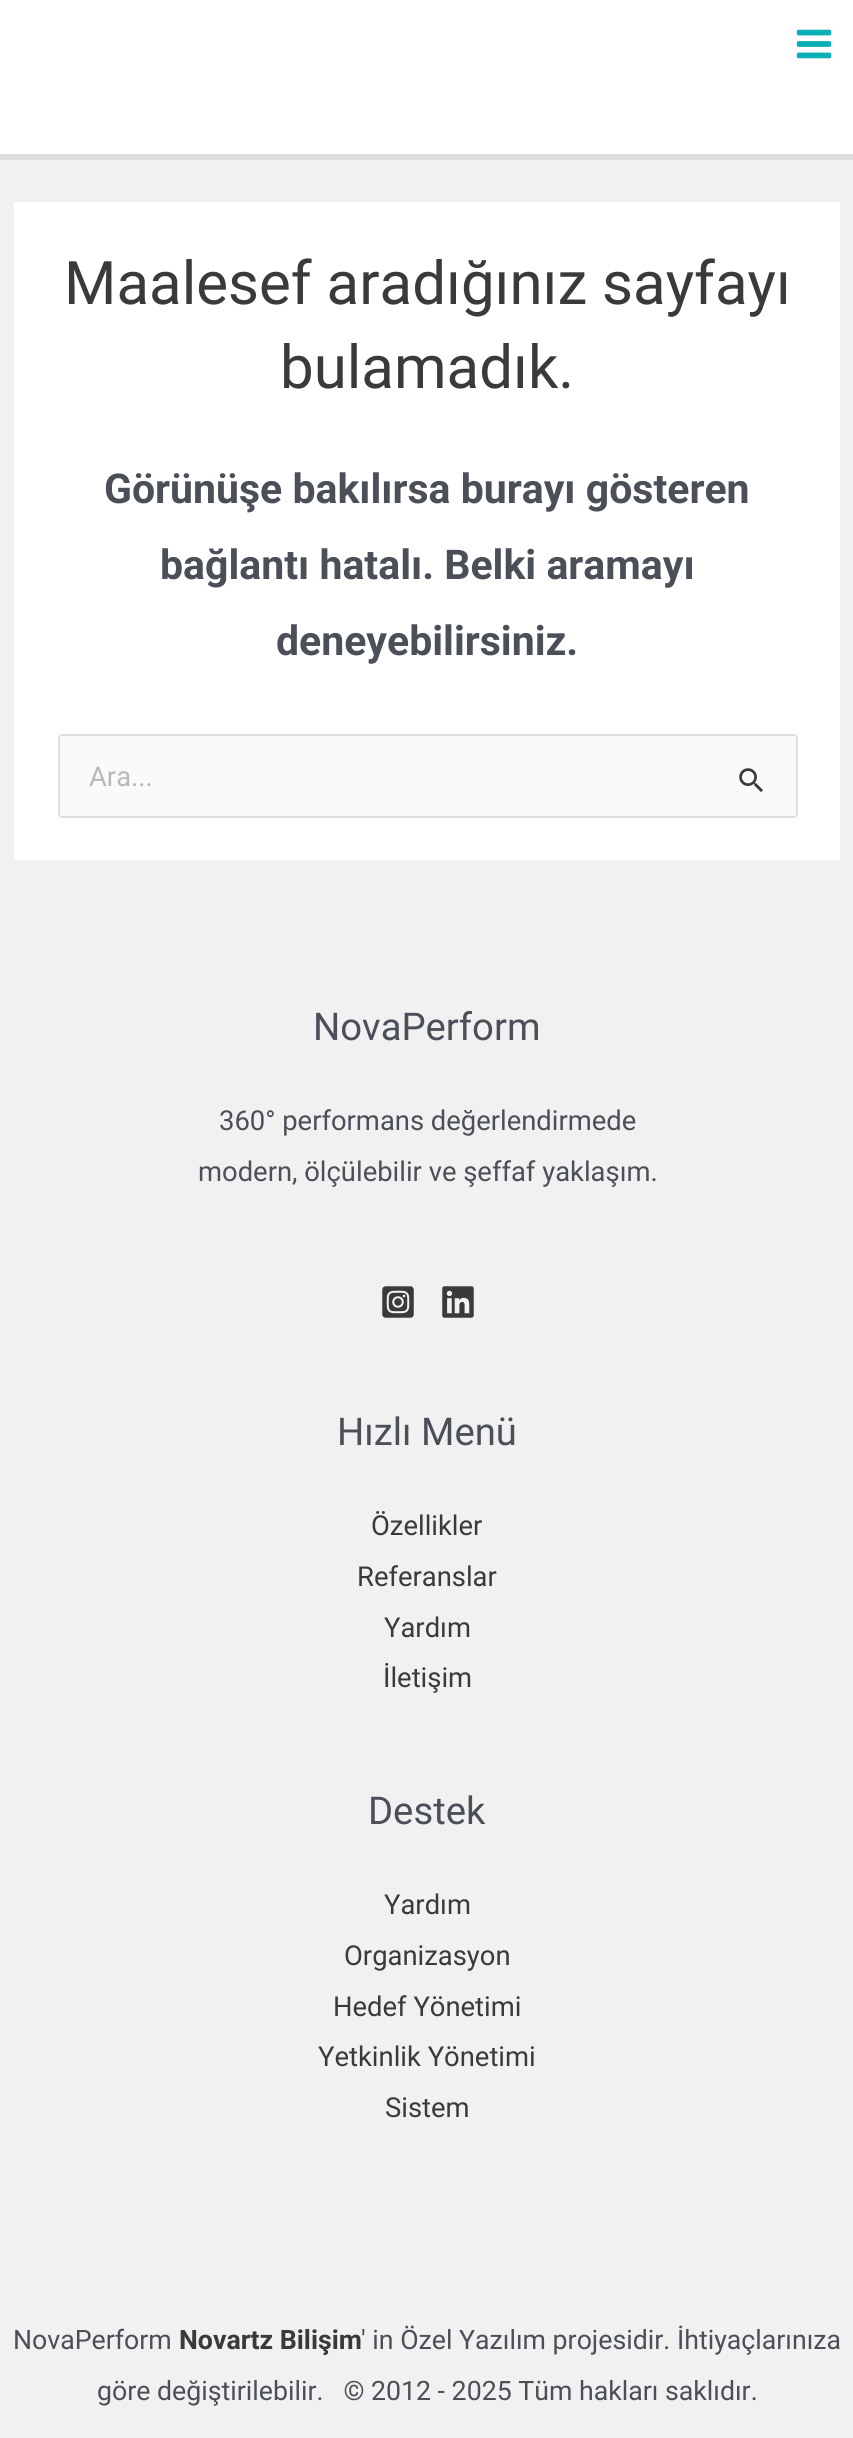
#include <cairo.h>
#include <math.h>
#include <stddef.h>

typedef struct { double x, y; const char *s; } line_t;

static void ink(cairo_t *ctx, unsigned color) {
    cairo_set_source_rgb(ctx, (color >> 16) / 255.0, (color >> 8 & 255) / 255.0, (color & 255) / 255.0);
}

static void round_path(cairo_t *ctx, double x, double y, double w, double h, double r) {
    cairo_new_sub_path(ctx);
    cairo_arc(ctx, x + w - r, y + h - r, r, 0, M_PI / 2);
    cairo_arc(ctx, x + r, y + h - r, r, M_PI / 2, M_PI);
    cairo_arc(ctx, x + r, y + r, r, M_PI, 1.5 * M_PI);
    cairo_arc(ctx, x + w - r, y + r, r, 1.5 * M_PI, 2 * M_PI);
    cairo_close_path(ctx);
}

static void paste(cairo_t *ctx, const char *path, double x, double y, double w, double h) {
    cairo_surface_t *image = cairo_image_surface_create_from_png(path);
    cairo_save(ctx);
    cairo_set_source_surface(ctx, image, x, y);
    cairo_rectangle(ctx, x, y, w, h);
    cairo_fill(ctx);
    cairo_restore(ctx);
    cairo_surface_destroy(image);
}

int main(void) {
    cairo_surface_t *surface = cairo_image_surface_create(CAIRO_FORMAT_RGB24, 853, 2438);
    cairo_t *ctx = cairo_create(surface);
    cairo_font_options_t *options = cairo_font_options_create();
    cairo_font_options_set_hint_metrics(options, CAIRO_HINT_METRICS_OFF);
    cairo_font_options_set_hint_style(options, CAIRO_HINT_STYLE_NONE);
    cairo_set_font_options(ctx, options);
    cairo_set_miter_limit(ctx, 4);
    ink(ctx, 0xF1F1F1);
    cairo_paint(ctx);
    ink(ctx, 0xFFFFFF);
    cairo_rectangle(ctx, 0, 0, 853, 154);
    cairo_fill(ctx);
    ink(ctx, 0xDDDDDD);
    cairo_rectangle(ctx, 0, 154, 853, 6);
    cairo_fill(ctx);
    paste(ctx, "media/1.png", 796, 29, 36, 30);
    ink(ctx, 0xFFFFFF);
    cairo_rectangle(ctx, 14, 202, 826, 658);
    cairo_fill(ctx);
    cairo_select_font_face(ctx, "Roboto", CAIRO_FONT_SLANT_NORMAL, CAIRO_FONT_WEIGHT_NORMAL);
    cairo_set_font_size(ctx, 60);
    ink(ctx, 0x3A3A3A);
    cairo_move_to(ctx, 64, 304);
    cairo_show_text(ctx, "Maalesef aradığınız sayfayı");
    cairo_move_to(ctx, 280, 388);
    cairo_show_text(ctx, "bulamadık.");
    cairo_select_font_face(ctx, "Roboto", CAIRO_FONT_SLANT_NORMAL, CAIRO_FONT_WEIGHT_BOLD);
    cairo_set_font_size(ctx, 41);
    ink(ctx, 0x4B4F58);
    {
        static const line_t items[] = {
            {104, 503, "Görünüşe bakılırsa burayı gösteren"},
            {160, 579, "bağlantı hatalı. Belki aramayı"},
            {276, 655, "deneyebilirsiniz."},
        };
        for (size_t i = 0; i < sizeof items / sizeof *items; i++) {
            cairo_move_to(ctx, items[i].x, items[i].y);
            cairo_show_text(ctx, items[i].s);
        }
    }
    ink(ctx, 0xFAFAFA);
    round_path(ctx, 59, 735, 738, 82, 3);
    cairo_fill_preserve(ctx);
    ink(ctx, 0xDDDDDD);
    cairo_stroke(ctx);
    cairo_select_font_face(ctx, "Roboto", CAIRO_FONT_SLANT_NORMAL, CAIRO_FONT_WEIGHT_NORMAL);
    cairo_set_font_size(ctx, 27.4);
    ink(ctx, 0xB8B8B8);
    cairo_move_to(ctx, 89, 786);
    cairo_show_text(ctx, "Ara...");
    paste(ctx, "media/2.png", 739, 768, 24, 24);
    cairo_set_font_size(ctx, 38.25);
    ink(ctx, 0x4B4F58);
    cairo_move_to(ctx, 313, 1040);
    cairo_show_text(ctx, "NovaPerform");
    cairo_set_font_size(ctx, 27.4);
    cairo_move_to(ctx, 219, 1130);
    cairo_show_text(ctx, "360° performans değerlendirmede");
    cairo_move_to(ctx, 198, 1181);
    cairo_show_text(ctx, "modern, ölçülebilir ve şeffaf yaklaşım.");
    paste(ctx, "media/3.png", 382, 1286, 32, 32);
    paste(ctx, "media/4.png", 442, 1286, 32, 32);
    cairo_set_font_size(ctx, 38.25);
    cairo_move_to(ctx, 337, 1445);
    cairo_show_text(ctx, "Hızlı Menü");
    cairo_set_font_size(ctx, 27.4);
    ink(ctx, 0x3A3A3A);
    {
        static const line_t items[] = {
            {371, 1535, "Özellikler"},
            {357, 1586, "Referanslar"},
            {384, 1637, "Yardım"},
            {383, 1687, "İletişim"},
        };
        for (size_t i = 0; i < sizeof items / sizeof *items; i++) {
            cairo_move_to(ctx, items[i].x, items[i].y);
            cairo_show_text(ctx, items[i].s);
        }
    }
    cairo_set_font_size(ctx, 38.25);
    ink(ctx, 0x4B4F58);
    cairo_move_to(ctx, 368, 1824);
    cairo_show_text(ctx, "Destek");
    cairo_set_font_size(ctx, 27.4);
    ink(ctx, 0x3A3A3A);
    {
        static const line_t items[] = {
            {384, 1914, "Yardım"},
            {344, 1965, "Organizasyon"},
            {333, 2016, "Hedef Yönetimi"},
            {318, 2066, "Yetkinlik Yönetimi"},
            {385, 2117, "Sistem"},
        };
        for (size_t i = 0; i < sizeof items / sizeof *items; i++) {
            cairo_move_to(ctx, items[i].x, items[i].y);
            cairo_show_text(ctx, items[i].s);
        }
    }
    cairo_set_font_size(ctx, 26.7);
    ink(ctx, 0x4B4F58);
    cairo_move_to(ctx, 13, 2349);
    cairo_show_text(ctx, "NovaPerform");
    cairo_select_font_face(ctx, "Roboto", CAIRO_FONT_SLANT_NORMAL, CAIRO_FONT_WEIGHT_BOLD);
    ink(ctx, 0x3A3A3A);
    cairo_move_to(ctx, 179, 2349);
    cairo_show_text(ctx, "Novartz Bilişim");
    cairo_select_font_face(ctx, "Roboto", CAIRO_FONT_SLANT_NORMAL, CAIRO_FONT_WEIGHT_NORMAL);
    ink(ctx, 0x4B4F58);
    cairo_move_to(ctx, 361, 2349);
    cairo_show_text(ctx, "' in Özel Yazılım projesidir. İhtiyaçlarınıza");
    cairo_move_to(ctx, 97, 2400);
    cairo_show_text(ctx, "göre değiştirilebilir.   © 2012 - 2025 Tüm hakları saklıdır.");
    cairo_surface_write_to_png(surface, "image.png");
    cairo_font_options_destroy(options);
    cairo_destroy(ctx);
    cairo_surface_destroy(surface);
    return 0;
}
